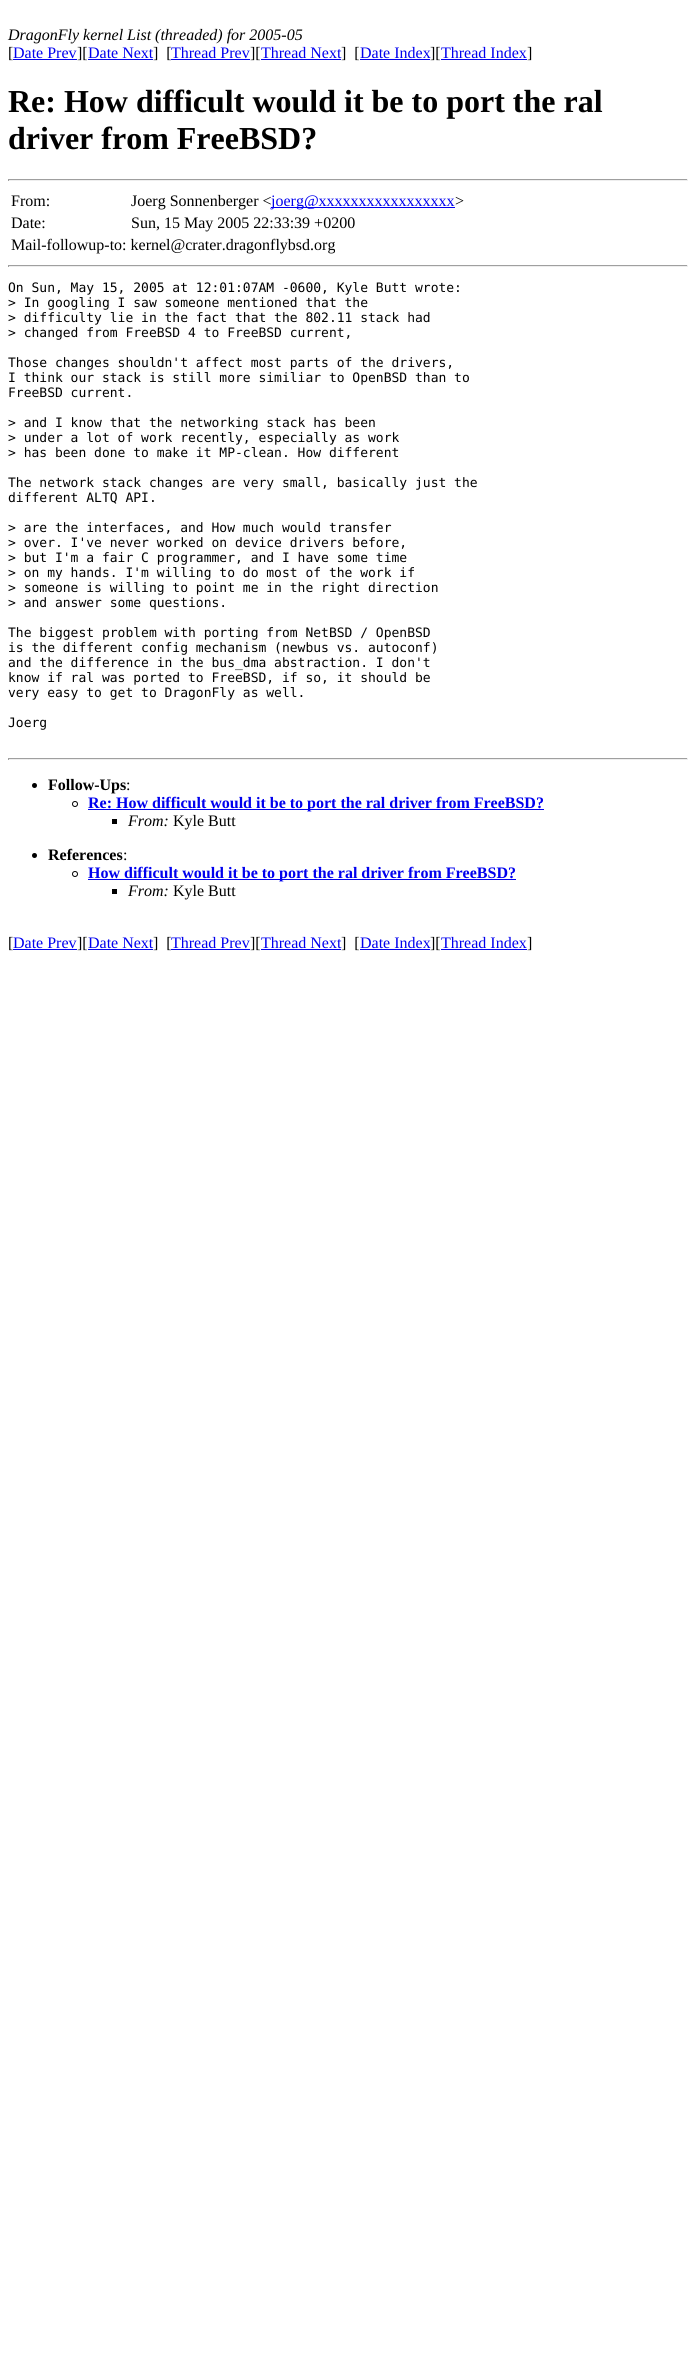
#include <cairo.h>
#include <math.h>
#include <stddef.h>

typedef struct { double x, y; const char *s; } line_t;
typedef struct { double x, y, w, h; unsigned color; } box_t;

static void ink(cairo_t *ctx, unsigned color) {
    cairo_set_source_rgb(ctx, (color >> 16) / 255.0, (color >> 8 & 255) / 255.0, (color & 255) / 255.0);
}

int main(void) {
    cairo_surface_t *surface = cairo_image_surface_create(CAIRO_FORMAT_RGB24, 696, 2376);
    cairo_t *ctx = cairo_create(surface);
    cairo_font_options_t *options = cairo_font_options_create();
    cairo_font_options_set_hint_metrics(options, CAIRO_HINT_METRICS_OFF);
    cairo_font_options_set_hint_style(options, CAIRO_HINT_STYLE_NONE);
    cairo_set_font_options(ctx, options);
    cairo_set_miter_limit(ctx, 4);
    ink(ctx, 0xFFFFFF);
    cairo_paint(ctx);
    cairo_select_font_face(ctx, "Liberation Serif", CAIRO_FONT_SLANT_ITALIC, CAIRO_FONT_WEIGHT_NORMAL);
    cairo_set_font_size(ctx, 16);
    ink(ctx, 0x000000);
    cairo_move_to(ctx, 8, 40);
    cairo_show_text(ctx, "DragonFly kernel List (threaded) for 2005-05");
    cairo_select_font_face(ctx, "Liberation Serif", CAIRO_FONT_SLANT_NORMAL, CAIRO_FONT_WEIGHT_NORMAL);
    cairo_move_to(ctx, 8, 58);
    cairo_show_text(ctx, "[");
    ink(ctx, 0x0000EE);
    cairo_move_to(ctx, 13, 58);
    cairo_show_text(ctx, "Date Prev");
    cairo_rectangle(ctx, 13, 59, 64, 1);
    cairo_fill(ctx);
    ink(ctx, 0x000000);
    cairo_move_to(ctx, 77, 58);
    cairo_show_text(ctx, "][");
    ink(ctx, 0x0000EE);
    cairo_move_to(ctx, 88, 58);
    cairo_show_text(ctx, "Date Next");
    cairo_rectangle(ctx, 88, 59, 65, 1);
    cairo_fill(ctx);
    ink(ctx, 0x000000);
    cairo_move_to(ctx, 153, 58);
    cairo_show_text(ctx, "]  [");
    ink(ctx, 0x0000EE);
    cairo_move_to(ctx, 171, 58);
    cairo_show_text(ctx, "Thread Prev");
    cairo_rectangle(ctx, 171, 59, 79, 1);
    cairo_fill(ctx);
    ink(ctx, 0x000000);
    cairo_move_to(ctx, 250, 58);
    cairo_show_text(ctx, "][");
    ink(ctx, 0x0000EE);
    cairo_move_to(ctx, 261, 58);
    cairo_show_text(ctx, "Thread Next");
    cairo_rectangle(ctx, 261, 59, 80, 1);
    cairo_fill(ctx);
    ink(ctx, 0x000000);
    cairo_move_to(ctx, 341, 58);
    cairo_show_text(ctx, "]  [");
    ink(ctx, 0x0000EE);
    cairo_move_to(ctx, 360, 58);
    cairo_show_text(ctx, "Date Index");
    cairo_rectangle(ctx, 360, 59, 70, 1);
    cairo_fill(ctx);
    ink(ctx, 0x000000);
    cairo_move_to(ctx, 430, 58);
    cairo_show_text(ctx, "][");
    ink(ctx, 0x0000EE);
    cairo_move_to(ctx, 441, 58);
    cairo_show_text(ctx, "Thread Index");
    cairo_rectangle(ctx, 441, 59, 86, 1);
    cairo_fill(ctx);
    ink(ctx, 0x000000);
    cairo_move_to(ctx, 527, 58);
    cairo_show_text(ctx, "]");
    cairo_select_font_face(ctx, "Liberation Serif", CAIRO_FONT_SLANT_NORMAL, CAIRO_FONT_WEIGHT_BOLD);
    cairo_set_font_size(ctx, 32);
    cairo_move_to(ctx, 8, 112);
    cairo_show_text(ctx, "Re: How difficult would it be to port the ral");
    cairo_move_to(ctx, 8, 149);
    cairo_show_text(ctx, "driver from FreeBSD?");
    {
        static const box_t items[] = {
            {8, 179, 680, 1, 0x9F9F9F},
            {687, 179, 1, 2, 0xEEEEEE},
            {8, 180, 680, 1, 0xEEEEEE},
            {8, 179, 1, 2, 0x9F9F9F},
        };
        for (size_t i = 0; i < sizeof items / sizeof *items; i++) {
            ink(ctx, items[i].color);
            cairo_rectangle(ctx, items[i].x, items[i].y, items[i].w, items[i].h);
            cairo_fill(ctx);
        }
    }
    cairo_select_font_face(ctx, "Liberation Serif", CAIRO_FONT_SLANT_NORMAL, CAIRO_FONT_WEIGHT_NORMAL);
    cairo_set_font_size(ctx, 16);
    ink(ctx, 0x000000);
    cairo_move_to(ctx, 11, 206);
    cairo_show_text(ctx, "From:");
    cairo_move_to(ctx, 131, 206);
    cairo_show_text(ctx, "Joerg Sonnenberger <");
    ink(ctx, 0x0000EE);
    cairo_rectangle(ctx, 271, 207, 184, 1);
    cairo_fill(ctx);
    cairo_move_to(ctx, 271, 206);
    cairo_show_text(ctx, "joerg@xxxxxxxxxxxxxxxxx");
    ink(ctx, 0x000000);
    {
        static const line_t items[] = {
            {455, 206, ">"},
            {11, 228, "Date:"},
            {131, 228, "Sun, 15 May 2005 22:33:39 +0200"},
            {11, 250, "Mail-followup-to: kernel@crater.dragonflybsd.org"},
        };
        for (size_t i = 0; i < sizeof items / sizeof *items; i++) {
            cairo_move_to(ctx, items[i].x, items[i].y);
            cairo_show_text(ctx, items[i].s);
        }
    }
    {
        static const box_t items[] = {
            {8, 265, 680, 1, 0x9F9F9F},
            {687, 265, 1, 2, 0xEEEEEE},
            {8, 266, 680, 1, 0xEEEEEE},
            {8, 265, 1, 2, 0x9F9F9F},
        };
        for (size_t i = 0; i < sizeof items / sizeof *items; i++) {
            ink(ctx, items[i].color);
            cairo_rectangle(ctx, items[i].x, items[i].y, items[i].w, items[i].h);
            cairo_fill(ctx);
        }
    }
    cairo_select_font_face(ctx, "DejaVu Sans Mono", CAIRO_FONT_SLANT_NORMAL, CAIRO_FONT_WEIGHT_NORMAL);
    cairo_set_font_size(ctx, 13);
    ink(ctx, 0x000000);
    {
        static const line_t items[] = {
            {8, 292, "On Sun, May 15, 2005 at 12:01:07AM -0600, Kyle Butt wrote:"},
            {8, 307, "> In googling I saw someone mentioned that the"},
            {8, 322, "> difficulty lie in the fact that the 802.11 stack had"},
            {8, 337, "> changed from FreeBSD 4 to FreeBSD current,"},
            {8, 367, "Those changes shouldn't affect most parts of the drivers,"},
            {8, 382, "I think our stack is still more similiar to OpenBSD than to"},
            {8, 397, "FreeBSD current."},
            {8, 427, "> and I know that the networking stack has been"},
            {8, 442, "> under a lot of work recently, especially as work"},
            {8, 457, "> has been done to make it MP-clean. How different"},
            {8, 487, "The network stack changes are very small, basically just the"},
            {8, 502, "different ALTQ API."},
            {8, 532, "> are the interfaces, and How much would transfer"},
            {8, 547, "> over. I've never worked on device drivers before,"},
            {8, 562, "> but I'm a fair C programmer, and I have some time"},
            {8, 577, "> on my hands. I'm willing to do most of the work if"},
            {8, 592, "> someone is willing to point me in the right direction"},
            {8, 607, "> and answer some questions."},
            {8, 637, "The biggest problem with porting from NetBSD / OpenBSD"},
            {8, 652, "is the different config mechanism (newbus vs. autoconf)"},
            {8, 667, "and the difference in the bus_dma abstraction. I don't"},
            {8, 682, "know if ral was ported to FreeBSD, if so, it should be"},
            {8, 697, "very easy to get to DragonFly as well."},
            {8, 727, "Joerg"},
        };
        for (size_t i = 0; i < sizeof items / sizeof *items; i++) {
            cairo_move_to(ctx, items[i].x, items[i].y);
            cairo_show_text(ctx, items[i].s);
        }
    }
    {
        static const box_t items[] = {
            {8, 758, 680, 1, 0x9F9F9F},
            {687, 758, 1, 2, 0xEEEEEE},
            {8, 759, 680, 1, 0xEEEEEE},
            {8, 758, 1, 2, 0x9F9F9F},
        };
        for (size_t i = 0; i < sizeof items / sizeof *items; i++) {
            ink(ctx, items[i].color);
            cairo_rectangle(ctx, items[i].x, items[i].y, items[i].w, items[i].h);
            cairo_fill(ctx);
        }
    }
    ink(ctx, 0x000000);
    cairo_new_path(ctx);
    cairo_arc(ctx, 34.5, 785.5, 2.5, 0, 2 * M_PI);
    cairo_fill(ctx);
    cairo_select_font_face(ctx, "Liberation Serif", CAIRO_FONT_SLANT_NORMAL, CAIRO_FONT_WEIGHT_BOLD);
    cairo_set_font_size(ctx, 16);
    cairo_move_to(ctx, 48, 790);
    cairo_show_text(ctx, "Follow-Ups");
    cairo_select_font_face(ctx, "Liberation Serif", CAIRO_FONT_SLANT_NORMAL, CAIRO_FONT_WEIGHT_NORMAL);
    cairo_move_to(ctx, 126, 790);
    cairo_show_text(ctx, ":");
    cairo_new_path(ctx);
    cairo_arc(ctx, 75, 804, 2.5, 0, 2 * M_PI);
    cairo_set_line_width(ctx, 1);
    cairo_stroke(ctx);
    ink(ctx, 0x0000EE);
    cairo_rectangle(ctx, 88, 809, 456, 1);
    cairo_fill(ctx);
    cairo_select_font_face(ctx, "Liberation Serif", CAIRO_FONT_SLANT_NORMAL, CAIRO_FONT_WEIGHT_BOLD);
    cairo_move_to(ctx, 88, 808);
    cairo_show_text(ctx, "Re: How difficult would it be to port the ral driver from FreeBSD?");
    ink(ctx, 0x000000);
    cairo_rectangle(ctx, 112, 819, 5, 5);
    cairo_fill(ctx);
    cairo_select_font_face(ctx, "Liberation Serif", CAIRO_FONT_SLANT_ITALIC, CAIRO_FONT_WEIGHT_NORMAL);
    cairo_move_to(ctx, 128, 826);
    cairo_show_text(ctx, "From:");
    cairo_select_font_face(ctx, "Liberation Serif", CAIRO_FONT_SLANT_NORMAL, CAIRO_FONT_WEIGHT_NORMAL);
    cairo_move_to(ctx, 173, 826);
    cairo_show_text(ctx, "Kyle Butt");
    cairo_new_path(ctx);
    cairo_arc(ctx, 34.5, 855.5, 2.5, 0, 2 * M_PI);
    cairo_fill(ctx);
    cairo_select_font_face(ctx, "Liberation Serif", CAIRO_FONT_SLANT_NORMAL, CAIRO_FONT_WEIGHT_BOLD);
    cairo_move_to(ctx, 48, 860);
    cairo_show_text(ctx, "References");
    cairo_select_font_face(ctx, "Liberation Serif", CAIRO_FONT_SLANT_NORMAL, CAIRO_FONT_WEIGHT_NORMAL);
    cairo_move_to(ctx, 123, 860);
    cairo_show_text(ctx, ":");
    cairo_new_path(ctx);
    cairo_arc(ctx, 75, 874, 2.5, 0, 2 * M_PI);
    cairo_stroke(ctx);
    ink(ctx, 0x0000EE);
    cairo_rectangle(ctx, 88, 879, 428, 1);
    cairo_fill(ctx);
    cairo_select_font_face(ctx, "Liberation Serif", CAIRO_FONT_SLANT_NORMAL, CAIRO_FONT_WEIGHT_BOLD);
    cairo_move_to(ctx, 88, 878);
    cairo_show_text(ctx, "How difficult would it be to port the ral driver from FreeBSD?");
    ink(ctx, 0x000000);
    cairo_rectangle(ctx, 112, 889, 5, 5);
    cairo_fill(ctx);
    cairo_select_font_face(ctx, "Liberation Serif", CAIRO_FONT_SLANT_ITALIC, CAIRO_FONT_WEIGHT_NORMAL);
    cairo_move_to(ctx, 128, 896);
    cairo_show_text(ctx, "From:");
    cairo_select_font_face(ctx, "Liberation Serif", CAIRO_FONT_SLANT_NORMAL, CAIRO_FONT_WEIGHT_NORMAL);
    cairo_move_to(ctx, 173, 896);
    cairo_show_text(ctx, "Kyle Butt");
    cairo_move_to(ctx, 8, 948);
    cairo_show_text(ctx, "[");
    ink(ctx, 0x0000EE);
    cairo_move_to(ctx, 13, 948);
    cairo_show_text(ctx, "Date Prev");
    cairo_rectangle(ctx, 13, 949, 64, 1);
    cairo_fill(ctx);
    ink(ctx, 0x000000);
    cairo_move_to(ctx, 77, 948);
    cairo_show_text(ctx, "][");
    ink(ctx, 0x0000EE);
    cairo_move_to(ctx, 88, 948);
    cairo_show_text(ctx, "Date Next");
    cairo_rectangle(ctx, 88, 949, 65, 1);
    cairo_fill(ctx);
    ink(ctx, 0x000000);
    cairo_move_to(ctx, 153, 948);
    cairo_show_text(ctx, "]  [");
    ink(ctx, 0x0000EE);
    cairo_move_to(ctx, 171, 948);
    cairo_show_text(ctx, "Thread Prev");
    cairo_rectangle(ctx, 171, 949, 79, 1);
    cairo_fill(ctx);
    ink(ctx, 0x000000);
    cairo_move_to(ctx, 250, 948);
    cairo_show_text(ctx, "][");
    ink(ctx, 0x0000EE);
    cairo_move_to(ctx, 261, 948);
    cairo_show_text(ctx, "Thread Next");
    cairo_rectangle(ctx, 261, 949, 80, 1);
    cairo_fill(ctx);
    ink(ctx, 0x000000);
    cairo_move_to(ctx, 341, 948);
    cairo_show_text(ctx, "]  [");
    ink(ctx, 0x0000EE);
    cairo_move_to(ctx, 360, 948);
    cairo_show_text(ctx, "Date Index");
    cairo_rectangle(ctx, 360, 949, 70, 1);
    cairo_fill(ctx);
    ink(ctx, 0x000000);
    cairo_move_to(ctx, 430, 948);
    cairo_show_text(ctx, "][");
    ink(ctx, 0x0000EE);
    cairo_move_to(ctx, 441, 948);
    cairo_show_text(ctx, "Thread Index");
    cairo_rectangle(ctx, 441, 949, 86, 1);
    cairo_fill(ctx);
    ink(ctx, 0x000000);
    cairo_move_to(ctx, 527, 948);
    cairo_show_text(ctx, "]");
    cairo_surface_write_to_png(surface, "image.png");
    cairo_font_options_destroy(options);
    cairo_destroy(ctx);
    cairo_surface_destroy(surface);
    return 0;
}
